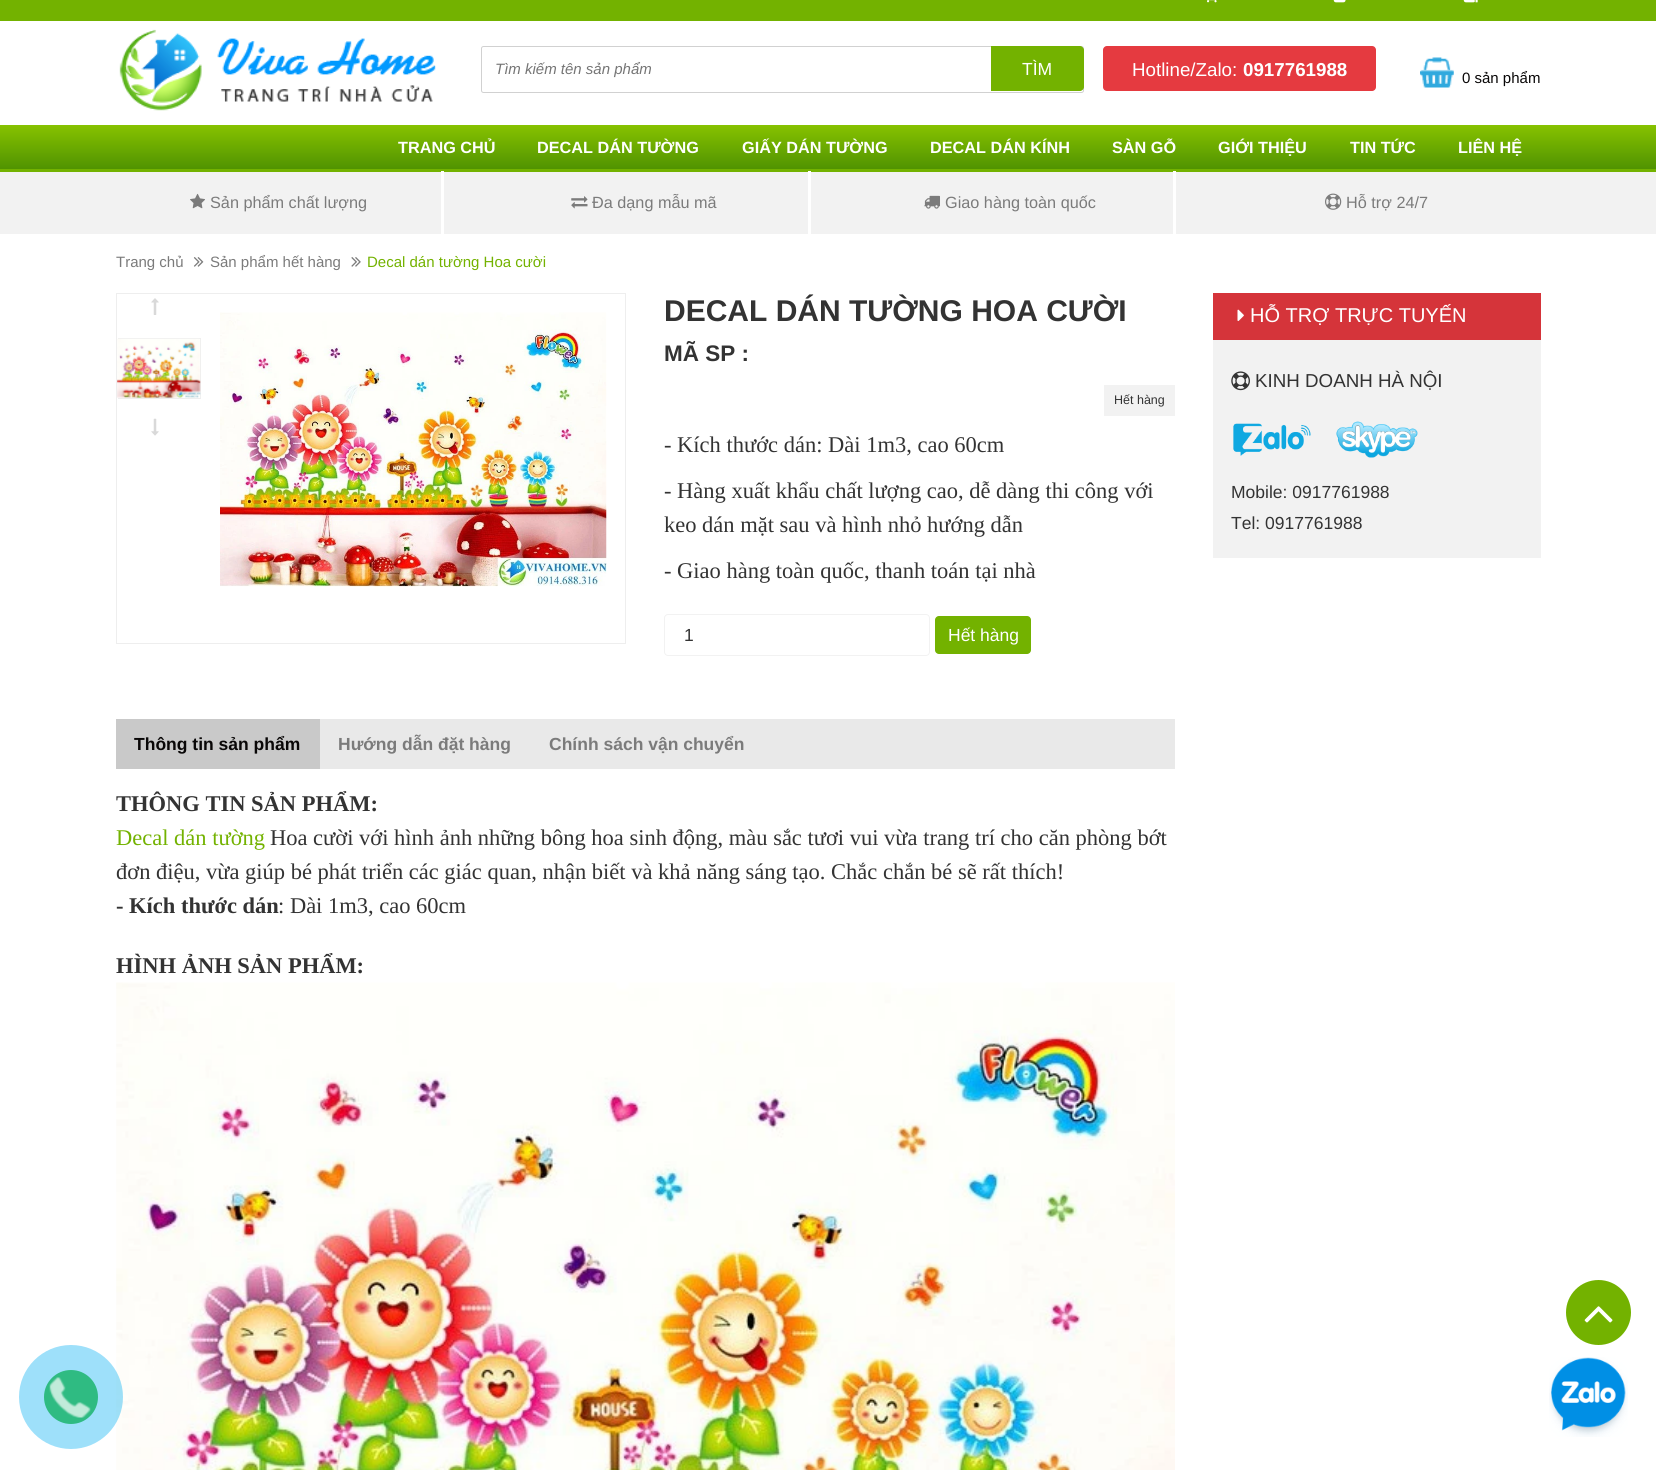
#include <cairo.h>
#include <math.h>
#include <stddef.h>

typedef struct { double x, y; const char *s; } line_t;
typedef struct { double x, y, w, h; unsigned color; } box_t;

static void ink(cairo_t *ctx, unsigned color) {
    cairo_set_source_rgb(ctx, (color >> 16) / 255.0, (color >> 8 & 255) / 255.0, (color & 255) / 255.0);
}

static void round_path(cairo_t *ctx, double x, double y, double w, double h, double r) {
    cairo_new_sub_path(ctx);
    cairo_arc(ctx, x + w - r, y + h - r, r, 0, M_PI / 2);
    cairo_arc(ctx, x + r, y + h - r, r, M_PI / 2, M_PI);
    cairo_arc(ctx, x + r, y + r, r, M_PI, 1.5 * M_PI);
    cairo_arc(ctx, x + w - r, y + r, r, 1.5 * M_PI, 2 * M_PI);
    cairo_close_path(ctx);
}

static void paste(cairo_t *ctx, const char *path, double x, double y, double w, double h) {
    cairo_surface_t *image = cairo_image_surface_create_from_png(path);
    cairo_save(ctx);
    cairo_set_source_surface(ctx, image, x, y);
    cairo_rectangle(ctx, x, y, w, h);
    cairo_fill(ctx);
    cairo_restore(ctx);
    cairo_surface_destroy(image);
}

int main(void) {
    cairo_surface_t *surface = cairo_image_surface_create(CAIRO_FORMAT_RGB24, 1656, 1470);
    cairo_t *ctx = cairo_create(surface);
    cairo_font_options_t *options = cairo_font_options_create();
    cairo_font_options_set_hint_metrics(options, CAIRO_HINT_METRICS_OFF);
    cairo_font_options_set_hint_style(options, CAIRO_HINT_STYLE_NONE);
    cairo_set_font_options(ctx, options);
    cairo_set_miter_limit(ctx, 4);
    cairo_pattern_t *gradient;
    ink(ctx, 0xFFFFFF);
    cairo_paint(ctx);
    ink(ctx, 0x73B200);
    cairo_rectangle(ctx, 0, 0, 1656, 21);
    cairo_fill(ctx);
    paste(ctx, "media/1.png", 1207, 0, 10, 3);
    paste(ctx, "media/2.png", 1333, 0, 13, 3);
    paste(ctx, "media/3.png", 1463, 0, 15, 3);
    paste(ctx, "media/4.png", 119, 29, 317, 82);
    round_path(ctx, 481.5, 46.5, 602, 46, 2);
    ink(ctx, 0xD1D1D1);
    cairo_set_line_width(ctx, 1);
    cairo_stroke(ctx);
    cairo_select_font_face(ctx, "Liberation Sans", CAIRO_FONT_SLANT_ITALIC, CAIRO_FONT_WEIGHT_NORMAL);
    cairo_set_font_size(ctx, 15);
    ink(ctx, 0x757575);
    cairo_move_to(ctx, 495, 74);
    cairo_show_text(ctx, "Tìm kiếm tên sản phẩm");
    ink(ctx, 0x73B200);
    cairo_new_path(ctx);
    cairo_move_to(ctx, 991, 46);
    cairo_line_to(ctx, 1080, 46);
    cairo_curve_to(ctx, 1082, 46, 1084, 48, 1084, 50);
    cairo_line_to(ctx, 1084, 87);
    cairo_curve_to(ctx, 1084, 89, 1082, 91, 1080, 91);
    cairo_line_to(ctx, 991, 91);
    cairo_close_path(ctx);
    cairo_fill(ctx);
    cairo_select_font_face(ctx, "Liberation Sans", CAIRO_FONT_SLANT_NORMAL, CAIRO_FONT_WEIGHT_NORMAL);
    cairo_set_font_size(ctx, 17.5);
    ink(ctx, 0xFFFFFF);
    cairo_move_to(ctx, 1022, 75);
    cairo_show_text(ctx, "TÌM");
    ink(ctx, 0xE53A40);
    round_path(ctx, 1103, 46, 273, 45, 4);
    cairo_fill(ctx);
    cairo_set_font_size(ctx, 18.75);
    ink(ctx, 0xFFFFFF);
    cairo_move_to(ctx, 1132, 76);
    cairo_show_text(ctx, "Hotline/Zalo:");
    cairo_select_font_face(ctx, "Liberation Sans", CAIRO_FONT_SLANT_NORMAL, CAIRO_FONT_WEIGHT_BOLD);
    cairo_move_to(ctx, 1243, 76);
    cairo_show_text(ctx, "0917761988");
    paste(ctx, "media/5.png", 1420, 57, 34, 31);
    cairo_select_font_face(ctx, "Liberation Sans", CAIRO_FONT_SLANT_NORMAL, CAIRO_FONT_WEIGHT_NORMAL);
    cairo_set_font_size(ctx, 15);
    ink(ctx, 0x090707);
    cairo_move_to(ctx, 1462, 83);
    cairo_show_text(ctx, "0 sản phẩm");
    gradient = cairo_pattern_create_linear(828, 125, 828, 169);
    cairo_pattern_add_color_stop_rgba(gradient, 0, 0.529, 0.761, 0, 1);
    cairo_pattern_add_color_stop_rgba(gradient, 1, 0.314, 0.576, 0.004, 1);
    cairo_set_source(ctx, gradient);
    cairo_pattern_destroy(gradient);
    cairo_rectangle(ctx, 0, 125, 1656, 44);
    cairo_fill(ctx);
    cairo_select_font_face(ctx, "Liberation Sans", CAIRO_FONT_SLANT_NORMAL, CAIRO_FONT_WEIGHT_BOLD);
    cairo_set_font_size(ctx, 16.25);
    ink(ctx, 0xFFFFFF);
    {
        static const line_t items[] = {
            {398, 153, "TRANG CHỦ"},
            {537, 153, "DECAL DÁN TƯỜNG"},
            {742, 153, "GIẤY DÁN TƯỜNG"},
            {930, 153, "DECAL DÁN KÍNH"},
            {1112, 153, "SÀN GỖ"},
            {1218, 153, "GIỚI THIỆU"},
            {1350, 153, "TIN TỨC"},
            {1458, 153, "LIÊN HỆ"},
        };
        for (size_t i = 0; i < sizeof items / sizeof *items; i++) {
            cairo_move_to(ctx, items[i].x, items[i].y);
            cairo_show_text(ctx, items[i].s);
        }
    }
    {
        static const box_t items[] = {
            {0, 172, 1656, 62, 0xF2F2F2},
            {0, 169, 1656, 3, 0x73B200},
            {441, 171, 3, 63, 0xFFFFFF},
        };
        for (size_t i = 0; i < sizeof items / sizeof *items; i++) {
            ink(ctx, items[i].color);
            cairo_rectangle(ctx, items[i].x, items[i].y, items[i].w, items[i].h);
            cairo_fill(ctx);
        }
    }
    paste(ctx, "media/6.png", 190, 193, 15, 16);
    cairo_select_font_face(ctx, "Liberation Sans", CAIRO_FONT_SLANT_NORMAL, CAIRO_FONT_WEIGHT_NORMAL);
    ink(ctx, 0x7B7B7B);
    cairo_move_to(ctx, 210, 208);
    cairo_show_text(ctx, "Sản phẩm chất lượng");
    ink(ctx, 0xFFFFFF);
    cairo_rectangle(ctx, 808, 171, 3, 63);
    cairo_fill(ctx);
    paste(ctx, "media/7.png", 571, 196, 17, 13);
    ink(ctx, 0x7B7B7B);
    cairo_move_to(ctx, 592, 208);
    cairo_show_text(ctx, "Đa dạng mẫu mã");
    ink(ctx, 0xFFFFFF);
    cairo_rectangle(ctx, 1173, 171, 3, 63);
    cairo_fill(ctx);
    paste(ctx, "media/8.png", 924, 195, 16, 14);
    ink(ctx, 0x7B7B7B);
    cairo_move_to(ctx, 945, 208);
    cairo_show_text(ctx, "Giao hàng toàn quốc");
    paste(ctx, "media/9.png", 1325, 193, 17, 17);
    cairo_move_to(ctx, 1346, 208);
    cairo_show_text(ctx, "Hỗ trợ 24/7");
    cairo_set_font_size(ctx, 15);
    cairo_move_to(ctx, 116, 267);
    cairo_show_text(ctx, "Trang chủ");
    paste(ctx, "media/10.png", 193, 257, 11, 10);
    cairo_move_to(ctx, 210, 267);
    cairo_show_text(ctx, "Sản phẩm hết hàng");
    paste(ctx, "media/11.png", 351, 257, 10, 10);
    ink(ctx, 0x73B200);
    cairo_move_to(ctx, 367, 267);
    cairo_show_text(ctx, "Decal dán tường Hoa cười");
    cairo_rectangle(ctx, 116.5, 293.5, 509, 350);
    ink(ctx, 0xEEEEEE);
    cairo_stroke(ctx);
    paste(ctx, "media/12.png", 151, 298, 8, 17);
    paste(ctx, "media/13.png", 151, 418, 8, 18);
    {
        static const box_t items[] = {
            {118, 338, 83, 1, 0xEEEEEE},
            {200, 338, 1, 61, 0xEEEEEE},
            {118, 398, 83, 1, 0xEEEEEE},
        };
        for (size_t i = 0; i < sizeof items / sizeof *items; i++) {
            ink(ctx, items[i].color);
            cairo_rectangle(ctx, items[i].x, items[i].y, items[i].w, items[i].h);
            cairo_fill(ctx);
        }
    }
    paste(ctx, "media/14.png", 117, 338, 84, 60);
    paste(ctx, "media/15.png", 220, 312, 387, 275);
    cairo_select_font_face(ctx, "Liberation Sans", CAIRO_FONT_SLANT_NORMAL, CAIRO_FONT_WEIGHT_BOLD);
    cairo_set_font_size(ctx, 30);
    ink(ctx, 0x333333);
    cairo_move_to(ctx, 664, 321);
    cairo_show_text(ctx, "DECAL DÁN TƯỜNG HOA CƯỜI");
    cairo_set_font_size(ctx, 22.5);
    cairo_move_to(ctx, 664, 361);
    cairo_show_text(ctx, "MÃ SP :");
    ink(ctx, 0xF2F2F2);
    cairo_rectangle(ctx, 1104, 385, 71, 31);
    cairo_fill(ctx);
    cairo_select_font_face(ctx, "Liberation Sans", CAIRO_FONT_SLANT_NORMAL, CAIRO_FONT_WEIGHT_NORMAL);
    cairo_set_font_size(ctx, 12.5);
    ink(ctx, 0x333333);
    cairo_move_to(ctx, 1114, 404);
    cairo_show_text(ctx, "Hết hàng");
    cairo_select_font_face(ctx, "Liberation Serif", CAIRO_FONT_SLANT_NORMAL, CAIRO_FONT_WEIGHT_NORMAL);
    cairo_set_font_size(ctx, 22.5);
    {
        static const line_t items[] = {
            {664, 452, "- Kích thước dán: Dài 1m3, cao 60cm"},
            {664, 498, "- Hàng xuất khẩu chất lượng cao, dễ dàng thi công với"},
            {664, 532, "keo dán mặt sau và hình nhỏ hướng dẫn"},
            {664, 578, "- Giao hàng toàn quốc, thanh toán tại nhà"},
        };
        for (size_t i = 0; i < sizeof items / sizeof *items; i++) {
            cairo_move_to(ctx, items[i].x, items[i].y);
            cairo_show_text(ctx, items[i].s);
        }
    }
    round_path(ctx, 664.5, 614.5, 265, 41, 3.5);
    ink(ctx, 0xF2F2F2);
    cairo_stroke(ctx);
    cairo_select_font_face(ctx, "Liberation Sans", CAIRO_FONT_SLANT_NORMAL, CAIRO_FONT_WEIGHT_NORMAL);
    cairo_set_font_size(ctx, 17.5);
    ink(ctx, 0x333333);
    cairo_move_to(ctx, 684, 641);
    cairo_show_text(ctx, "1");
    ink(ctx, 0x73B200);
    round_path(ctx, 935, 616, 96, 38, 4);
    cairo_fill(ctx);
    ink(ctx, 0xFFFFFF);
    cairo_move_to(ctx, 948, 641);
    cairo_show_text(ctx, "Hết hàng");
    ink(ctx, 0xE9E9E9);
    cairo_rectangle(ctx, 320, 719, 855, 50);
    cairo_fill(ctx);
    ink(ctx, 0xC9C9C9);
    cairo_rectangle(ctx, 116, 719, 204, 50);
    cairo_fill(ctx);
    cairo_select_font_face(ctx, "Liberation Sans", CAIRO_FONT_SLANT_NORMAL, CAIRO_FONT_WEIGHT_BOLD);
    ink(ctx, 0x090707);
    cairo_move_to(ctx, 134, 750);
    cairo_show_text(ctx, "Thông tin sản phẩm");
    ink(ctx, 0x7B7B7B);
    cairo_move_to(ctx, 338, 750);
    cairo_show_text(ctx, "Hướng dẫn đặt hàng");
    cairo_move_to(ctx, 549, 750);
    cairo_show_text(ctx, "Chính sách vận chuyển");
    cairo_select_font_face(ctx, "Liberation Serif", CAIRO_FONT_SLANT_NORMAL, CAIRO_FONT_WEIGHT_BOLD);
    cairo_set_font_size(ctx, 22.5);
    ink(ctx, 0x333333);
    cairo_move_to(ctx, 116, 811);
    cairo_show_text(ctx, "THÔNG TIN SẢN PHẨM:");
    cairo_select_font_face(ctx, "Liberation Serif", CAIRO_FONT_SLANT_NORMAL, CAIRO_FONT_WEIGHT_NORMAL);
    ink(ctx, 0x73B200);
    cairo_move_to(ctx, 116, 845);
    cairo_show_text(ctx, "Decal dán tường");
    ink(ctx, 0x333333);
    cairo_move_to(ctx, 270, 845);
    cairo_show_text(ctx, "Hoa cười với hình ảnh những bông hoa sinh động, màu sắc tươi vui vừa trang trí cho căn phòng bớt");
    cairo_move_to(ctx, 116, 879);
    cairo_show_text(ctx, "đơn điệu, vừa giúp bé phát triển các giác quan, nhận biết và khả năng sáng tạo. Chắc chắn bé sẽ rất thích!");
    cairo_select_font_face(ctx, "Liberation Serif", CAIRO_FONT_SLANT_NORMAL, CAIRO_FONT_WEIGHT_BOLD);
    cairo_move_to(ctx, 116, 913);
    cairo_show_text(ctx, "- Kích thước dán");
    cairo_select_font_face(ctx, "Liberation Serif", CAIRO_FONT_SLANT_NORMAL, CAIRO_FONT_WEIGHT_NORMAL);
    cairo_move_to(ctx, 278, 913);
    cairo_show_text(ctx, ": Dài 1m3, cao 60cm");
    cairo_select_font_face(ctx, "Liberation Serif", CAIRO_FONT_SLANT_NORMAL, CAIRO_FONT_WEIGHT_BOLD);
    cairo_move_to(ctx, 116, 973);
    cairo_show_text(ctx, "HÌNH ẢNH SẢN PHẨM:");
    paste(ctx, "media/16.png", 116, 982, 1059, 488);
    ink(ctx, 0xD5343A);
    cairo_rectangle(ctx, 1213, 293, 328, 47);
    cairo_fill(ctx);
    paste(ctx, "media/17.png", 1237, 309, 7, 12);
    cairo_select_font_face(ctx, "Liberation Sans", CAIRO_FONT_SLANT_NORMAL, CAIRO_FONT_WEIGHT_NORMAL);
    cairo_set_font_size(ctx, 20);
    ink(ctx, 0xFFFFFF);
    cairo_move_to(ctx, 1250, 322);
    cairo_show_text(ctx, "HỖ TRỢ TRỰC TUYẾN");
    ink(ctx, 0xF2F2F2);
    cairo_rectangle(ctx, 1213, 340, 328, 218);
    cairo_fill(ctx);
    paste(ctx, "media/18.png", 1231, 371, 19, 20);
    cairo_set_font_size(ctx, 18.75);
    ink(ctx, 0x333333);
    cairo_move_to(ctx, 1255, 387);
    cairo_show_text(ctx, "KINH DOANH HÀ NỘI");
    paste(ctx, "media/19.png", 1233, 423, 78, 33);
    paste(ctx, "media/20.png", 1336, 421, 82, 37);
    cairo_set_font_size(ctx, 17.5);
    cairo_move_to(ctx, 1231, 498);
    cairo_show_text(ctx, "Mobile: 0917761988");
    cairo_move_to(ctx, 1231, 529);
    cairo_show_text(ctx, "Tel: 0917761988");
    ink(ctx, 0x73B200);
    cairo_new_path(ctx);
    cairo_arc(ctx, 1598.5, 1312.5, 32.5, 0, 2 * M_PI);
    cairo_fill(ctx);
    paste(ctx, "media/21.png", 1584, 1306, 29, 17);
    cairo_set_source_rgba(ctx, 0, 0.686, 0.949, 0.38);
    cairo_arc(ctx, 71, 1397, 52, 0, 2 * M_PI);
    cairo_fill(ctx);
    ink(ctx, 0x2FBB82);
    cairo_arc(ctx, 71, 1397, 27, 0, 2 * M_PI);
    cairo_fill(ctx);
    paste(ctx, "media/22.png", 49, 1377, 42, 41);
    paste(ctx, "media/23.png", 1549, 1357, 79, 80);
    cairo_surface_write_to_png(surface, "image.png");
    cairo_font_options_destroy(options);
    cairo_destroy(ctx);
    cairo_surface_destroy(surface);
    return 0;
}
